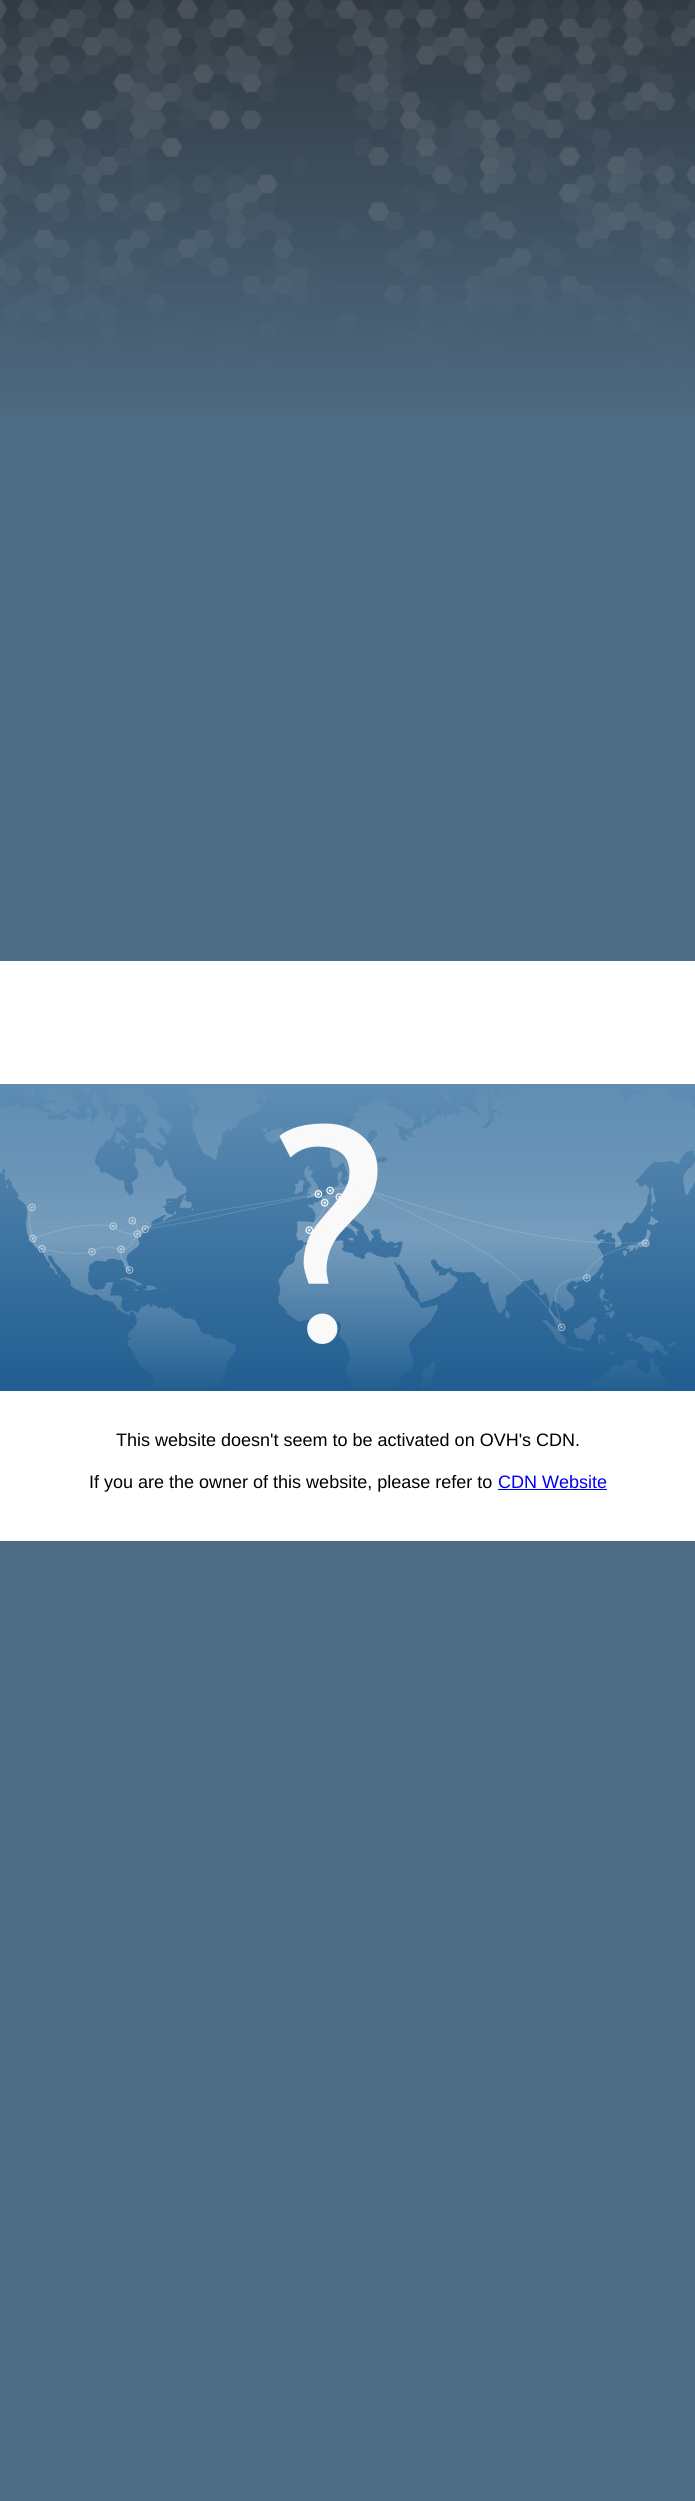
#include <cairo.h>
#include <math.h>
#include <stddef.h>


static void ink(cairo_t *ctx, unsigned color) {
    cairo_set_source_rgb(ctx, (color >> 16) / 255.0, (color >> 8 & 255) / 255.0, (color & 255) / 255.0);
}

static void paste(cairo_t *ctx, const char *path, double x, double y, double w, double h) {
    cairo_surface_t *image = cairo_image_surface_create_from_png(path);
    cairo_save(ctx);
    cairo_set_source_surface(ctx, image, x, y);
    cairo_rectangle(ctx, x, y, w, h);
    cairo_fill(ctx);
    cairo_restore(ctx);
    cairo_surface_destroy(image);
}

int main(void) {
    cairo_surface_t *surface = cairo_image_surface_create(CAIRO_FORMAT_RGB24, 695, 2501);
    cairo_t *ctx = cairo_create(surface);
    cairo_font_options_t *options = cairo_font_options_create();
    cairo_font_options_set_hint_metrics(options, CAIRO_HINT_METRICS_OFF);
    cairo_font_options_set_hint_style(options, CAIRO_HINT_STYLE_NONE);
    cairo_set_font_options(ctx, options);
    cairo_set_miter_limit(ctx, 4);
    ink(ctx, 0x4E6C84);
    cairo_paint(ctx);
    paste(ctx, "media/1.png", 0, 0, 695, 415);
    ink(ctx, 0xFFFFFF);
    cairo_rectangle(ctx, 0, 961, 695, 580);
    cairo_fill(ctx);
    paste(ctx, "media/2.png", 0, 1084, 695, 307);
    cairo_select_font_face(ctx, "Liberation Sans", CAIRO_FONT_SLANT_NORMAL, CAIRO_FONT_WEIGHT_NORMAL);
    cairo_set_font_size(ctx, 18);
    ink(ctx, 0x000000);
    cairo_move_to(ctx, 116, 1446);
    cairo_show_text(ctx, "This website doesn't seem to be activated on OVH's CDN.");
    cairo_move_to(ctx, 89, 1488);
    cairo_show_text(ctx, "If you are the owner of this website, please refer to");
    ink(ctx, 0x0000EE);
    cairo_move_to(ctx, 498, 1488);
    cairo_show_text(ctx, "CDN Website");
    cairo_rectangle(ctx, 498, 1489, 109, 1);
    cairo_fill(ctx);
    cairo_surface_write_to_png(surface, "image.png");
    cairo_font_options_destroy(options);
    cairo_destroy(ctx);
    cairo_surface_destroy(surface);
    return 0;
}
